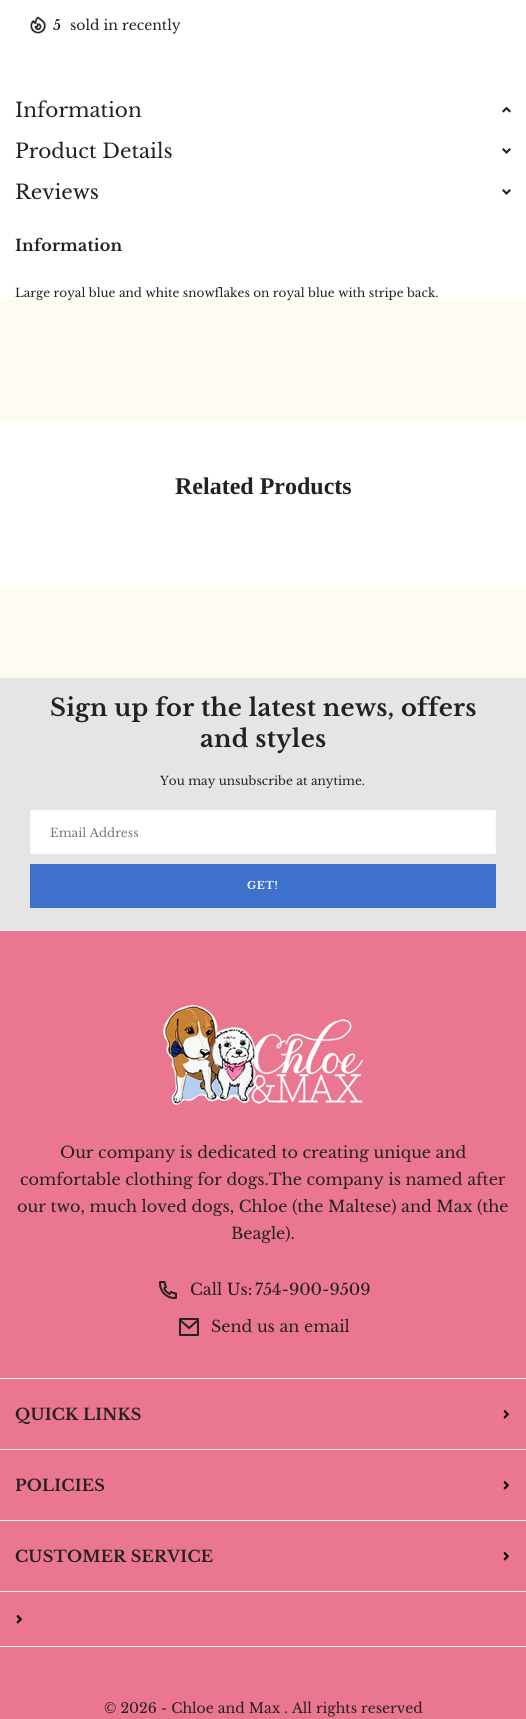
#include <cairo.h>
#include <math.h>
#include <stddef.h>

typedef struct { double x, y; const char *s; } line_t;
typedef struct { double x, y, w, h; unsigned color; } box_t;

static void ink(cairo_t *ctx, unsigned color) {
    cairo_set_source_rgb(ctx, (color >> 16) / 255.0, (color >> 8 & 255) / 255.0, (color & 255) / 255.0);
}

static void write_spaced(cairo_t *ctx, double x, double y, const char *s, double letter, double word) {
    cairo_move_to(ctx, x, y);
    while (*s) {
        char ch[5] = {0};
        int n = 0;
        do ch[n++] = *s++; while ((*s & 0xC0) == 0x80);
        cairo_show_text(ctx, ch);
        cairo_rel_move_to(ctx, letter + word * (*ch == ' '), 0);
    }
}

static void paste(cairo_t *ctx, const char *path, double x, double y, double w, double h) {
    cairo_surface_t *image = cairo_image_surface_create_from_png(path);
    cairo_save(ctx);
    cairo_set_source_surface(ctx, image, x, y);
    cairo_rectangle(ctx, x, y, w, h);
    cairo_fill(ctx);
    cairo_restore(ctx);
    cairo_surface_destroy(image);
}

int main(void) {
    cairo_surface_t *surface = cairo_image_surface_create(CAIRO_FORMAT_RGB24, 526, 1719);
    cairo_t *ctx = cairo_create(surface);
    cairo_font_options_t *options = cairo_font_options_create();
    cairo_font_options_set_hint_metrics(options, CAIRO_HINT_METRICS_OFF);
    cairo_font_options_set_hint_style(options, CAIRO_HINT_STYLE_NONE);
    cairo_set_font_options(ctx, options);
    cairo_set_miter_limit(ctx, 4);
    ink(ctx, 0xFFFBF1);
    cairo_paint(ctx);
    ink(ctx, 0xFFFFFF);
    cairo_rectangle(ctx, 0, 0, 526, 300);
    cairo_fill(ctx);
    paste(ctx, "media/1.png", 30, 16, 16, 18);
    cairo_select_font_face(ctx, "Libre Baskerville", CAIRO_FONT_SLANT_NORMAL, CAIRO_FONT_WEIGHT_NORMAL);
    cairo_set_font_size(ctx, 14);
    ink(ctx, 0x000000);
    cairo_move_to(ctx, 53, 30);
    cairo_show_text(ctx, "5");
    ink(ctx, 0x232122);
    cairo_move_to(ctx, 70, 30);
    cairo_show_text(ctx, "sold in recently");
    cairo_set_font_size(ctx, 20);
    cairo_move_to(ctx, 15, 117);
    cairo_show_text(ctx, "Information");
    paste(ctx, "media/2.png", 502, 107, 9, 6);
    cairo_move_to(ctx, 15, 158);
    cairo_show_text(ctx, "Product Details");
    paste(ctx, "media/3.png", 502, 148, 9, 6);
    cairo_move_to(ctx, 15, 199);
    cairo_show_text(ctx, "Reviews");
    paste(ctx, "media/3.png", 502, 189, 9, 6);
    cairo_select_font_face(ctx, "Libre Baskerville", CAIRO_FONT_SLANT_NORMAL, CAIRO_FONT_WEIGHT_BOLD);
    cairo_set_font_size(ctx, 16);
    write_spaced(ctx, 15, 251, "Information", 0.2, 0);
    cairo_select_font_face(ctx, "Libre Baskerville", CAIRO_FONT_SLANT_NORMAL, CAIRO_FONT_WEIGHT_NORMAL);
    cairo_set_font_size(ctx, 12);
    cairo_move_to(ctx, 15, 297);
    cairo_show_text(ctx, "Large royal blue and white snowflakes on royal blue with stripe back.");
    ink(ctx, 0xFFFFFF);
    cairo_rectangle(ctx, 0, 422, 526, 165);
    cairo_fill(ctx);
    cairo_select_font_face(ctx, "Liberation Serif", CAIRO_FONT_SLANT_NORMAL, CAIRO_FONT_WEIGHT_BOLD);
    cairo_set_font_size(ctx, 24);
    ink(ctx, 0x232122);
    cairo_move_to(ctx, 175, 494);
    cairo_show_text(ctx, "Related Products");
    {
        static const box_t items[] = {
            {0, 677, 526, 1, 0xF2F3F5},
            {0, 678, 526, 252, 0xE5E5E5},
            {0, 930, 526, 1, 0xF2F3F5},
        };
        for (size_t i = 0; i < sizeof items / sizeof *items; i++) {
            ink(ctx, items[i].color);
            cairo_rectangle(ctx, items[i].x, items[i].y, items[i].w, items[i].h);
            cairo_fill(ctx);
        }
    }
    cairo_select_font_face(ctx, "Libre Baskerville", CAIRO_FONT_SLANT_NORMAL, CAIRO_FONT_WEIGHT_BOLD);
    ink(ctx, 0x232122);
    write_spaced(ctx, 50, 716, "Sign up for the latest news, offers", 0.25, 0);
    write_spaced(ctx, 200, 747, "and styles", 0.25, 0);
    cairo_select_font_face(ctx, "Libre Baskerville", CAIRO_FONT_SLANT_NORMAL, CAIRO_FONT_WEIGHT_NORMAL);
    cairo_set_font_size(ctx, 12);
    cairo_move_to(ctx, 160, 785);
    cairo_show_text(ctx, "You may unsubscribe at anytime.");
    ink(ctx, 0xFFFFFF);
    cairo_rectangle(ctx, 30.5, 810.5, 465, 43);
    cairo_fill_preserve(ctx);
    ink(ctx, 0xF7F9FD);
    cairo_set_line_width(ctx, 1);
    cairo_stroke(ctx);
    ink(ctx, 0x777777);
    cairo_move_to(ctx, 50, 837);
    cairo_show_text(ctx, "Email Address");
    ink(ctx, 0x3E71CC);
    cairo_rectangle(ctx, 30, 864, 466, 44);
    cairo_fill(ctx);
    cairo_select_font_face(ctx, "Libre Baskerville", CAIRO_FONT_SLANT_NORMAL, CAIRO_FONT_WEIGHT_BOLD);
    cairo_set_font_size(ctx, 10.5);
    ink(ctx, 0xFFFFFF);
    write_spaced(ctx, 247, 889, "GET!", 0.5, 0);
    ink(ctx, 0xEB768F);
    cairo_rectangle(ctx, 0, 931, 526, 788);
    cairo_fill(ctx);
    paste(ctx, "media/4.png", 163, 1005, 200, 100);
    cairo_select_font_face(ctx, "Libre Baskerville", CAIRO_FONT_SLANT_NORMAL, CAIRO_FONT_WEIGHT_NORMAL);
    cairo_set_font_size(ctx, 16);
    ink(ctx, 0x232122);
    {
        static const line_t items[] = {
            {60, 1158, "Our company is dedicated to creating unique and"},
            {20, 1185, "comfortable clothing for dogs.The company is named after"},
            {17, 1212, "our two, much loved dogs, Chloe (the Maltese) and Max (the"},
            {231, 1239, "Beagle)."},
        };
        for (size_t i = 0; i < sizeof items / sizeof *items; i++) {
            cairo_move_to(ctx, items[i].x, items[i].y);
            cairo_show_text(ctx, items[i].s);
        }
    }
    paste(ctx, "media/5.png", 159, 1281, 18, 18);
    cairo_move_to(ctx, 190, 1295);
    cairo_show_text(ctx, "Call Us:");
    cairo_move_to(ctx, 255, 1295);
    cairo_show_text(ctx, "754-900-9509");
    paste(ctx, "media/6.png", 179, 1318, 20, 18);
    cairo_move_to(ctx, 211, 1332);
    cairo_show_text(ctx, "Send us an email");
    ink(ctx, 0xF2F3F5);
    cairo_rectangle(ctx, 0, 1378, 526, 1);
    cairo_fill(ctx);
    cairo_rectangle(ctx, 0, 1449, 526, 1);
    cairo_fill(ctx);
    cairo_select_font_face(ctx, "Libre Baskerville", CAIRO_FONT_SLANT_NORMAL, CAIRO_FONT_WEIGHT_BOLD);
    ink(ctx, 0x232122);
    write_spaced(ctx, 15, 1420, "QUICK LINKS", 0.2, 0);
    paste(ctx, "media/7.png", 503, 1410, 7, 9);
    ink(ctx, 0xF2F3F5);
    cairo_rectangle(ctx, 0, 1520, 526, 1);
    cairo_fill(ctx);
    ink(ctx, 0x232122);
    write_spaced(ctx, 15, 1491, "POLICIES", 0.2, 0);
    paste(ctx, "media/7.png", 503, 1481, 7, 9);
    ink(ctx, 0xF2F3F5);
    cairo_rectangle(ctx, 0, 1591, 526, 1);
    cairo_fill(ctx);
    ink(ctx, 0x232122);
    write_spaced(ctx, 15, 1562, "CUSTOMER SERVICE", 0.2, 0);
    paste(ctx, "media/7.png", 503, 1552, 7, 9);
    ink(ctx, 0xF2F3F5);
    cairo_rectangle(ctx, 0, 1646, 526, 1);
    cairo_fill(ctx);
    paste(ctx, "media/7.png", 16, 1615, 7, 9);
    cairo_select_font_face(ctx, "Libre Baskerville", CAIRO_FONT_SLANT_NORMAL, CAIRO_FONT_WEIGHT_NORMAL);
    cairo_set_font_size(ctx, 14);
    ink(ctx, 0x232122);
    cairo_move_to(ctx, 104, 1713);
    cairo_show_text(ctx, "© 2026 - Chloe and Max . All rights reserved");
    cairo_surface_write_to_png(surface, "image.png");
    cairo_font_options_destroy(options);
    cairo_destroy(ctx);
    cairo_surface_destroy(surface);
    return 0;
}
